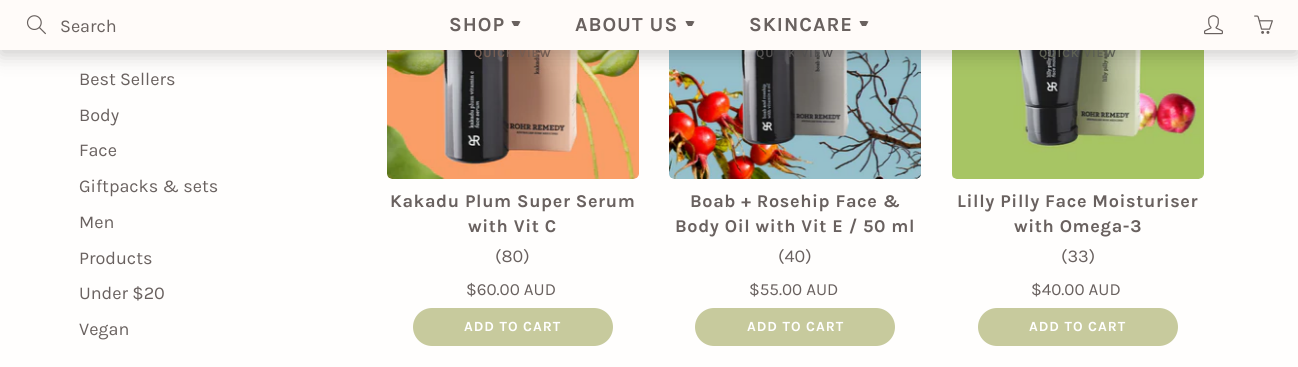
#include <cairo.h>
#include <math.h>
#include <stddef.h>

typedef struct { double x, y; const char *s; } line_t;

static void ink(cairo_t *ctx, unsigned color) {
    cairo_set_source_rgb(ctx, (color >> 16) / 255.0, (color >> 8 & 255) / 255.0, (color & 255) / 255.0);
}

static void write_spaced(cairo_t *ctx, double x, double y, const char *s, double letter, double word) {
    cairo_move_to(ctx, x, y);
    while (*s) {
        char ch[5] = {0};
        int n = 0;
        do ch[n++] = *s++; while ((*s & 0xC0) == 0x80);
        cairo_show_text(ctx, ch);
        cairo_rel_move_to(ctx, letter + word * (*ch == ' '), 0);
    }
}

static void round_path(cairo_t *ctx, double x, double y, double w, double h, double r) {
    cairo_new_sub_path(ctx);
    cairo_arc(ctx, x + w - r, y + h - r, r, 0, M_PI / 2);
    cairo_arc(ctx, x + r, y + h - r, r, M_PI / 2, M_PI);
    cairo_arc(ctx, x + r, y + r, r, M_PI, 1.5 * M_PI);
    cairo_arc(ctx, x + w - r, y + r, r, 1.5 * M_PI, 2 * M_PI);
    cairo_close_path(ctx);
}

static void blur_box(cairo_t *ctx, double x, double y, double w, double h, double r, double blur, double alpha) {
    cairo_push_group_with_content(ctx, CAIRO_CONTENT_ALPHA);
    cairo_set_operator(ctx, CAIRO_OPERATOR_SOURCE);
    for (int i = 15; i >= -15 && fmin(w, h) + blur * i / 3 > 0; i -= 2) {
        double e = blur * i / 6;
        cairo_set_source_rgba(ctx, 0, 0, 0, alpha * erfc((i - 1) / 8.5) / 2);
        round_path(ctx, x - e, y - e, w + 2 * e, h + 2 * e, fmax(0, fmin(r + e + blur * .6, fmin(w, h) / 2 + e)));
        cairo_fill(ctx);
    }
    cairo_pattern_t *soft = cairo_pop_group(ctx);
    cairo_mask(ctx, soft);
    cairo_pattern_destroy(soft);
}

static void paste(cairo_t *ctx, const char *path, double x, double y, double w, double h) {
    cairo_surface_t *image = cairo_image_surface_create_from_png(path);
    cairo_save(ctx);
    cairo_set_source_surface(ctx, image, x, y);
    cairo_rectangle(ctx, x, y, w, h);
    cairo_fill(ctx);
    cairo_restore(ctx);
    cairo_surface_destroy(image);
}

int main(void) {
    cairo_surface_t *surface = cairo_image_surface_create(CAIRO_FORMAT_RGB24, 1298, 367);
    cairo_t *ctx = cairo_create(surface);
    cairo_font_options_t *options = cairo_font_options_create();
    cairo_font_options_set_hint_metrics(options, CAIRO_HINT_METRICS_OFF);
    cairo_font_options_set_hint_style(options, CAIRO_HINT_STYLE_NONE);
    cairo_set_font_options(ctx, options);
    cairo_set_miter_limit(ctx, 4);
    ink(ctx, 0xFFFEFD);
    cairo_paint(ctx);
    paste(ctx, "media/4.png", 387, 50, 252, 129);
    paste(ctx, "media/5.png", 669, 50, 252, 129);
    paste(ctx, "media/6.png", 952, 50, 252, 129);
    ink(ctx, 0x000000);
    blur_box(ctx, 0, 5, 1298, 50, 0, 10, 0.2);
    cairo_select_font_face(ctx, "Karla", CAIRO_FONT_SLANT_NORMAL, CAIRO_FONT_WEIGHT_BOLD);
    cairo_set_font_size(ctx, 12);
    ink(ctx, 0x745D53);
    write_spaced(ctx, 474, 57, "QUICK VIEW", 1, 0);
    ink(ctx, 0x525050);
    write_spaced(ctx, 756, 57, "QU", 1, 0);
    write_spaced(ctx, 788, 57, "K VIEW", 1, 0);
    ink(ctx, 0x5C5F53);
    write_spaced(ctx, 1039, 57, "QUICK VIEW", 1, 0);
    ink(ctx, 0xFFFBF9);
    cairo_rectangle(ctx, 0, 0, 1298, 50);
    cairo_fill(ctx);
    paste(ctx, "media/1.png", 26, 15, 20, 20);
    cairo_select_font_face(ctx, "Karla", CAIRO_FONT_SLANT_NORMAL, CAIRO_FONT_WEIGHT_NORMAL);
    cairo_set_font_size(ctx, 18);
    ink(ctx, 0x69615F);
    cairo_move_to(ctx, 60, 32);
    cairo_show_text(ctx, "Search");
    cairo_select_font_face(ctx, "Karla", CAIRO_FONT_SLANT_NORMAL, CAIRO_FONT_WEIGHT_BOLD);
    cairo_set_font_size(ctx, 20);
    write_spaced(ctx, 449, 31, "SHOP", 1, 0);
    cairo_new_path(ctx);
    cairo_move_to(ctx, 512, 21);
    cairo_line_to(ctx, 511.5, 21.5);
    cairo_line_to(ctx, 514, 26);
    cairo_line_to(ctx, 518, 26);
    cairo_line_to(ctx, 520.5, 21.5);
    cairo_line_to(ctx, 518.5, 21);
    cairo_close_path(ctx);
    cairo_fill(ctx);
    write_spaced(ctx, 575, 31, "ABOUT US", 1, 0);
    cairo_new_path(ctx);
    cairo_move_to(ctx, 686, 21);
    cairo_line_to(ctx, 685.5, 21.5);
    cairo_line_to(ctx, 688, 26);
    cairo_line_to(ctx, 692, 26);
    cairo_line_to(ctx, 694.5, 21.5);
    cairo_line_to(ctx, 692.5, 21);
    cairo_close_path(ctx);
    cairo_fill(ctx);
    write_spaced(ctx, 749, 31, "SKINCARE", 1, 0);
    cairo_new_path(ctx);
    cairo_move_to(ctx, 860, 21);
    cairo_line_to(ctx, 859.5, 21.5);
    cairo_line_to(ctx, 862, 26);
    cairo_line_to(ctx, 866, 26);
    cairo_line_to(ctx, 868.5, 21.5);
    cairo_line_to(ctx, 866.5, 21);
    cairo_close_path(ctx);
    cairo_fill(ctx);
    paste(ctx, "media/2.png", 1204, 15, 19, 20);
    paste(ctx, "media/3.png", 1254, 15, 19, 19);
    cairo_select_font_face(ctx, "Karla", CAIRO_FONT_SLANT_NORMAL, CAIRO_FONT_WEIGHT_NORMAL);
    cairo_set_font_size(ctx, 18);
    {
        static const line_t items[] = {
            {79, 85, "Best Sellers"},
            {79, 121, "Body"},
            {79, 156, "Face"},
            {79, 192, "Giftpacks & sets"},
            {79, 228, "Men"},
            {79, 264, "Products"},
            {79, 299, "Under $20"},
            {79, 335, "Vegan"},
        };
        for (size_t i = 0; i < sizeof items / sizeof *items; i++) {
            cairo_move_to(ctx, items[i].x, items[i].y);
            cairo_show_text(ctx, items[i].s);
        }
    }
    cairo_select_font_face(ctx, "Karla", CAIRO_FONT_SLANT_NORMAL, CAIRO_FONT_WEIGHT_BOLD);
    write_spaced(ctx, 390, 207, "Kakadu Plum Super Serum", 0.65, 0);
    write_spaced(ctx, 468, 232, "with Vit C", 0.65, 0);
    cairo_select_font_face(ctx, "Karla", CAIRO_FONT_SLANT_NORMAL, CAIRO_FONT_WEIGHT_NORMAL);
    cairo_move_to(ctx, 495, 262);
    cairo_show_text(ctx, "(80)");
    cairo_set_font_size(ctx, 17);
    cairo_move_to(ctx, 466, 295);
    cairo_show_text(ctx, "$60.00 AUD");
    ink(ctx, 0xC7CA9D);
    round_path(ctx, 413, 308, 200, 38, 19);
    cairo_fill(ctx);
    cairo_select_font_face(ctx, "Karla", CAIRO_FONT_SLANT_NORMAL, CAIRO_FONT_WEIGHT_BOLD);
    cairo_set_font_size(ctx, 14);
    ink(ctx, 0xFFFFFF);
    write_spaced(ctx, 464, 331, "ADD TO CART", 1, 0);
    cairo_set_font_size(ctx, 18);
    ink(ctx, 0x69615F);
    write_spaced(ctx, 690, 207, "Boab + Rosehip Face &", 0.65, 0);
    write_spaced(ctx, 675, 232, "Body Oil with Vit E / 50 ml", 0.65, 0);
    cairo_select_font_face(ctx, "Karla", CAIRO_FONT_SLANT_NORMAL, CAIRO_FONT_WEIGHT_NORMAL);
    cairo_move_to(ctx, 778, 262);
    cairo_show_text(ctx, "(40)");
    cairo_set_font_size(ctx, 17);
    cairo_move_to(ctx, 749, 295);
    cairo_show_text(ctx, "$55.00 AUD");
    ink(ctx, 0xC7CA9D);
    round_path(ctx, 695, 308, 200, 38, 19);
    cairo_fill(ctx);
    cairo_select_font_face(ctx, "Karla", CAIRO_FONT_SLANT_NORMAL, CAIRO_FONT_WEIGHT_BOLD);
    cairo_set_font_size(ctx, 14);
    ink(ctx, 0xFFFFFF);
    write_spaced(ctx, 747, 331, "ADD TO CART", 1, 0);
    cairo_set_font_size(ctx, 18);
    ink(ctx, 0x69615F);
    write_spaced(ctx, 957, 207, "Lilly Pilly Face Moisturiser", 0.65, 0);
    write_spaced(ctx, 1014, 232, "with Omega-3", 0.65, 0);
    cairo_select_font_face(ctx, "Karla", CAIRO_FONT_SLANT_NORMAL, CAIRO_FONT_WEIGHT_NORMAL);
    cairo_move_to(ctx, 1061, 262);
    cairo_show_text(ctx, "(33)");
    cairo_set_font_size(ctx, 17);
    cairo_move_to(ctx, 1031, 295);
    cairo_show_text(ctx, "$40.00 AUD");
    ink(ctx, 0xC7CA9D);
    round_path(ctx, 978, 308, 200, 38, 19);
    cairo_fill(ctx);
    cairo_select_font_face(ctx, "Karla", CAIRO_FONT_SLANT_NORMAL, CAIRO_FONT_WEIGHT_BOLD);
    cairo_set_font_size(ctx, 14);
    ink(ctx, 0xFFFFFF);
    write_spaced(ctx, 1029, 331, "ADD TO CART", 1, 0);
    cairo_surface_write_to_png(surface, "image.png");
    cairo_font_options_destroy(options);
    cairo_destroy(ctx);
    cairo_surface_destroy(surface);
    return 0;
}
